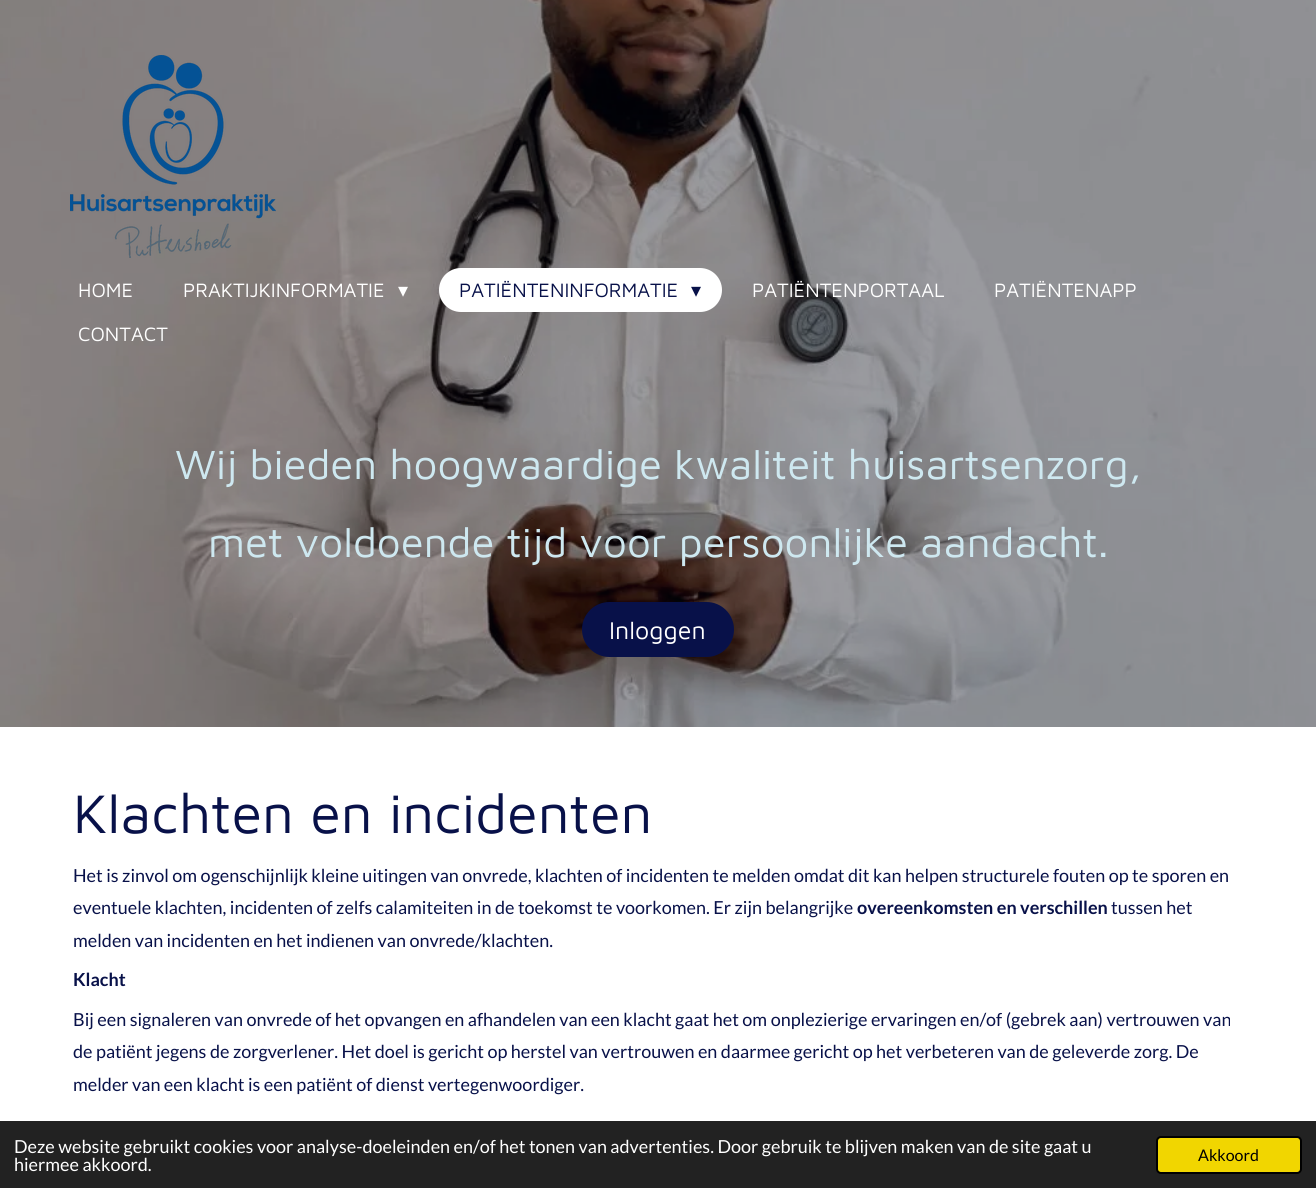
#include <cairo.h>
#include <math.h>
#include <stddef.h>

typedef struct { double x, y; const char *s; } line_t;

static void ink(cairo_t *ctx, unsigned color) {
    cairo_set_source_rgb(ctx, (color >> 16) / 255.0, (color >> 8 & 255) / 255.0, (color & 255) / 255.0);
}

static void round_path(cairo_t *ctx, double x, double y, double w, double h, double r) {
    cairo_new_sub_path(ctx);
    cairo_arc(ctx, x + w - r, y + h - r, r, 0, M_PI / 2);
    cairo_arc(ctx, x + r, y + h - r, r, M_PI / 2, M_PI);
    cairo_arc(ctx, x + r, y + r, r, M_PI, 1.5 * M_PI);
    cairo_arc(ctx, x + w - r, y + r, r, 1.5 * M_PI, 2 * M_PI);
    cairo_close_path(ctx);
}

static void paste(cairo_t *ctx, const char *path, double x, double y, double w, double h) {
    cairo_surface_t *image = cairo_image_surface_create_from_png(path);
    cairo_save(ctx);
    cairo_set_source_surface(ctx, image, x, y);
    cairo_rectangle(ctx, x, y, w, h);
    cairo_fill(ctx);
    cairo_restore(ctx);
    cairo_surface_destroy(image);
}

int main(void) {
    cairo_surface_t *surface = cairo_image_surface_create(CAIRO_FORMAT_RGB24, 1316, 1188);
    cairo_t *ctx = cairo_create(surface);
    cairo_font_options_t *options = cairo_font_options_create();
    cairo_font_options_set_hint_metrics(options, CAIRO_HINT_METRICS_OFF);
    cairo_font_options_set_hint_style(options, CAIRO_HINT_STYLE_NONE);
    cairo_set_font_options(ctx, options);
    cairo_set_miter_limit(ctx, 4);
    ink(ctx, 0xFFFFFF);
    cairo_paint(ctx);
    paste(ctx, "media/2.png", 0, 0, 1316, 727);
    paste(ctx, "media/1.png", 70, 55, 206, 203);
    cairo_select_font_face(ctx, "Maven Pro", CAIRO_FONT_SLANT_NORMAL, CAIRO_FONT_WEIGHT_NORMAL);
    cairo_set_font_size(ctx, 20);
    ink(ctx, 0xFFFFFF);
    cairo_move_to(ctx, 78, 297);
    cairo_show_text(ctx, "HOME");
    cairo_move_to(ctx, 183, 297);
    cairo_show_text(ctx, "PRAKTIJKINFORMATIE");
    cairo_select_font_face(ctx, "DejaVu Sans", CAIRO_FONT_SLANT_NORMAL, CAIRO_FONT_WEIGHT_NORMAL);
    cairo_move_to(ctx, 398, 297);
    cairo_show_text(ctx, "▾");
    round_path(ctx, 439, 268, 283, 44, 22);
    cairo_fill(ctx);
    cairo_select_font_face(ctx, "Maven Pro", CAIRO_FONT_SLANT_NORMAL, CAIRO_FONT_WEIGHT_NORMAL);
    ink(ctx, 0x081149);
    cairo_move_to(ctx, 459, 297);
    cairo_show_text(ctx, "PATIËNTENINFORMATIE");
    cairo_select_font_face(ctx, "DejaVu Sans", CAIRO_FONT_SLANT_NORMAL, CAIRO_FONT_WEIGHT_NORMAL);
    cairo_move_to(ctx, 691, 297);
    cairo_show_text(ctx, "▾");
    cairo_select_font_face(ctx, "Maven Pro", CAIRO_FONT_SLANT_NORMAL, CAIRO_FONT_WEIGHT_NORMAL);
    ink(ctx, 0xFFFFFF);
    {
        static const line_t items[] = {
            {752, 297, "PATIËNTENPORTAAL"},
            {994, 297, "PATIËNTENAPP"},
            {78, 341, "CONTACT"},
        };
        for (size_t i = 0; i < sizeof items / sizeof *items; i++) {
            cairo_move_to(ctx, items[i].x, items[i].y);
            cairo_show_text(ctx, items[i].s);
        }
    }
    cairo_set_font_size(ctx, 42);
    ink(ctx, 0xCEE8F0);
    cairo_move_to(ctx, 175, 479);
    cairo_show_text(ctx, "Wij bieden hoogwaardige kwaliteit huisartsenzorg,");
    cairo_move_to(ctx, 208, 557);
    cairo_show_text(ctx, "met voldoende tijd voor persoonlijke aandacht.");
    ink(ctx, 0x081149);
    round_path(ctx, 582, 602, 152, 55, 27.5);
    cairo_fill(ctx);
    cairo_set_font_size(ctx, 25);
    ink(ctx, 0xFFFFFF);
    cairo_move_to(ctx, 609, 639);
    cairo_show_text(ctx, "Inloggen");
    cairo_set_font_size(ctx, 56);
    ink(ctx, 0x081149);
    cairo_move_to(ctx, 73, 833);
    cairo_show_text(ctx, "Klachten en incidenten");
    cairo_select_font_face(ctx, "Lato", CAIRO_FONT_SLANT_NORMAL, CAIRO_FONT_WEIGHT_NORMAL);
    cairo_set_font_size(ctx, 18);
    cairo_move_to(ctx, 73, 882);
    cairo_show_text(ctx, "Het is zinvol om ogenschijnlijk kleine uitingen van onvrede, klachten of incidenten te melden omdat dit kan helpen structurele fouten op te sporen en");
    cairo_move_to(ctx, 73, 914);
    cairo_show_text(ctx, "eventuele klachten, incidenten of zelfs calamiteiten in de toekomst te voorkomen. Er zijn belangrijke");
    cairo_select_font_face(ctx, "Lato", CAIRO_FONT_SLANT_NORMAL, CAIRO_FONT_WEIGHT_BOLD);
    cairo_move_to(ctx, 857, 914);
    cairo_show_text(ctx, "overeenkomsten en verschillen");
    cairo_select_font_face(ctx, "Lato", CAIRO_FONT_SLANT_NORMAL, CAIRO_FONT_WEIGHT_NORMAL);
    cairo_move_to(ctx, 1111, 914);
    cairo_show_text(ctx, "tussen het");
    cairo_move_to(ctx, 73, 947);
    cairo_show_text(ctx, "melden van incidenten en het indienen van onvrede/klachten.");
    cairo_select_font_face(ctx, "Lato", CAIRO_FONT_SLANT_NORMAL, CAIRO_FONT_WEIGHT_BOLD);
    cairo_move_to(ctx, 73, 986);
    cairo_show_text(ctx, "Klacht");
    cairo_select_font_face(ctx, "Lato", CAIRO_FONT_SLANT_NORMAL, CAIRO_FONT_WEIGHT_NORMAL);
    {
        static const line_t items[] = {
            {73, 1026, "Bij een signaleren van onvrede of het opvangen en afhandelen van een klacht gaat het om onplezierige ervaringen en/of (gebrek aan) vertrouwen van"},
            {73, 1058, "de patiënt jegens de zorgverlener. Het doel is gericht op herstel van vertrouwen en daarmee gericht op het verbeteren van de geleverde zorg. De"},
            {73, 1091, "melder van een klacht is een patiënt of dienst vertegenwoordiger."},
        };
        for (size_t i = 0; i < sizeof items / sizeof *items; i++) {
            cairo_move_to(ctx, items[i].x, items[i].y);
            cairo_show_text(ctx, items[i].s);
        }
    }
    ink(ctx, 0x222222);
    cairo_rectangle(ctx, 0, 1121, 1316, 67);
    cairo_fill(ctx);
    ink(ctx, 0xFFFFFF);
    cairo_move_to(ctx, 14, 1153);
    cairo_show_text(ctx, "Deze website gebruikt cookies voor analyse-doeleinden en/of het tonen van advertenties. Door gebruik te blijven maken van de site gaat u");
    cairo_move_to(ctx, 14, 1171);
    cairo_show_text(ctx, "hiermee akkoord.");
    ink(ctx, 0xF1D600);
    round_path(ctx, 1157, 1137, 144, 36, 4);
    cairo_fill_preserve(ctx);
    ink(ctx, 0x000000);
    cairo_stroke(ctx);
    cairo_set_font_size(ctx, 16);
    cairo_move_to(ctx, 1198, 1161);
    cairo_show_text(ctx, "Akkoord");
    cairo_surface_write_to_png(surface, "image.png");
    cairo_font_options_destroy(options);
    cairo_destroy(ctx);
    cairo_surface_destroy(surface);
    return 0;
}
